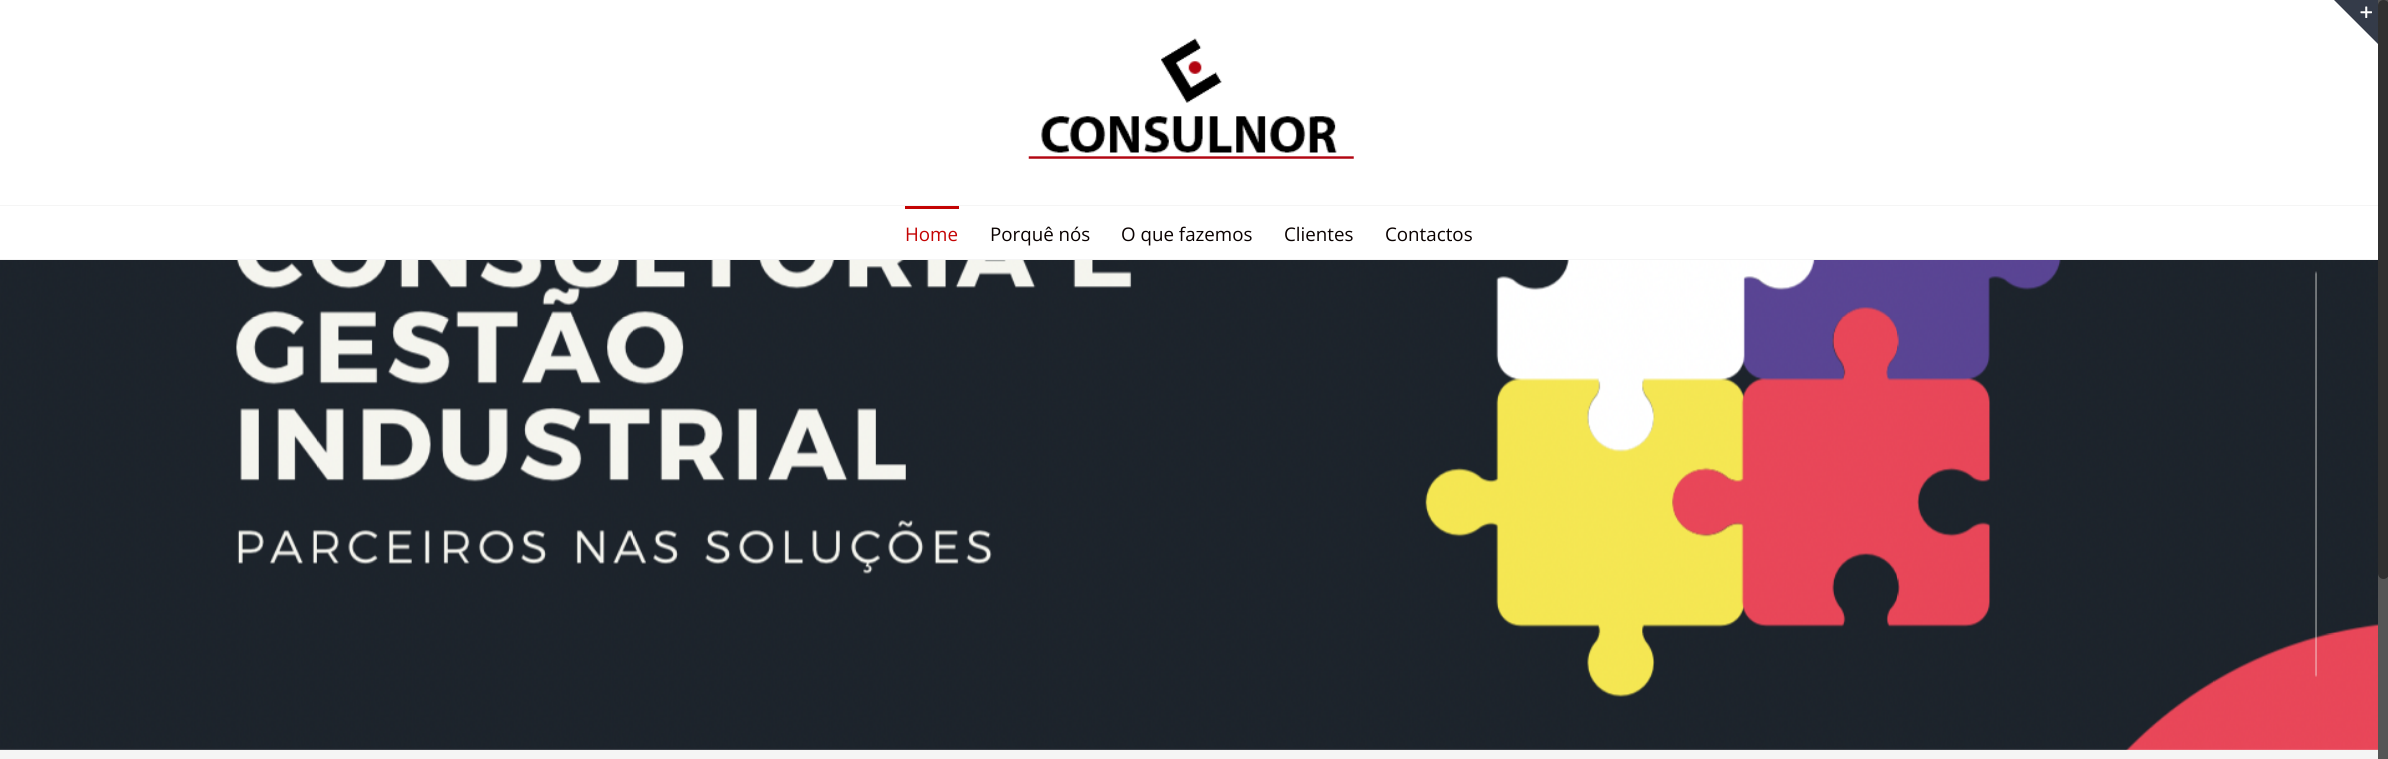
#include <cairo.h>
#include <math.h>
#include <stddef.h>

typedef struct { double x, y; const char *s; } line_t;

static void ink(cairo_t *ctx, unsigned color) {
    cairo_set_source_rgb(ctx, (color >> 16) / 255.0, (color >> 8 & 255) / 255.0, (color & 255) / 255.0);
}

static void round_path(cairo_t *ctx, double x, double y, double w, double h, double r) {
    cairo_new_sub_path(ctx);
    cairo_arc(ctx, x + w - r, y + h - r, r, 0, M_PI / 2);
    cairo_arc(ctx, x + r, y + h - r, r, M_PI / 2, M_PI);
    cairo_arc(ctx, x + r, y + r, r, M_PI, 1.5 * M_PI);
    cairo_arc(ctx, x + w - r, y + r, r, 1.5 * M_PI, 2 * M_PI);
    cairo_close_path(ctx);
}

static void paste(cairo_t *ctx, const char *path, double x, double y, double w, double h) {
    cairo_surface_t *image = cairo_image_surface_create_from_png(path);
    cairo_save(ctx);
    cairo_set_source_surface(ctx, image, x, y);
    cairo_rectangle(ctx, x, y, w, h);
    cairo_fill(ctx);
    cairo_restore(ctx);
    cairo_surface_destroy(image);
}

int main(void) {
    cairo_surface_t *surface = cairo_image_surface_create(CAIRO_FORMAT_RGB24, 2388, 759);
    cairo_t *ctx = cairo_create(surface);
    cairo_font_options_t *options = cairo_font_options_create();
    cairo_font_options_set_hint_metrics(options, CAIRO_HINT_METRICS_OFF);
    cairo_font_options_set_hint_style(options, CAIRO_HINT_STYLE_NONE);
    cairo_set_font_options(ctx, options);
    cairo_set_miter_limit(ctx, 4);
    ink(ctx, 0xF5F5F5);
    cairo_paint(ctx);
    ink(ctx, 0xFFFFFF);
    cairo_rectangle(ctx, 0, 0, 2378, 205);
    cairo_fill(ctx);
    ink(ctx, 0x343B49);
    cairo_new_path(ctx);
    cairo_move_to(ctx, 2334, 0);
    cairo_line_to(ctx, 2378, 0);
    cairo_line_to(ctx, 2378, 44);
    cairo_close_path(ctx);
    cairo_fill(ctx);
    paste(ctx, "media/1.png", 2360, 6, 12, 12);
    paste(ctx, "media/2.png", 1028, 38, 326, 121);
    ink(ctx, 0xFFFFFF);
    cairo_rectangle(ctx, 0, 206, 2378, 53);
    cairo_fill(ctx);
    ink(ctx, 0xC40303);
    cairo_rectangle(ctx, 905, 206, 54, 3);
    cairo_fill(ctx);
    cairo_select_font_face(ctx, "Open Sans", CAIRO_FONT_SLANT_NORMAL, CAIRO_FONT_WEIGHT_NORMAL);
    cairo_set_font_size(ctx, 18.75);
    cairo_move_to(ctx, 905, 241);
    cairo_show_text(ctx, "Home");
    ink(ctx, 0x0A0100);
    {
        static const line_t items[] = {
            {990, 241, "Porquê nós"},
            {1121, 241, "O que fazemos"},
            {1284, 241, "Clientes"},
            {1385, 241, "Contactos"},
        };
        for (size_t i = 0; i < sizeof items / sizeof *items; i++) {
            cairo_move_to(ctx, items[i].x, items[i].y);
            cairo_show_text(ctx, items[i].s);
        }
    }
    paste(ctx, "media/3.png", 0, 260, 2378, 490);
    ink(ctx, 0x555555);
    cairo_rectangle(ctx, 2378, 0, 10, 759);
    cairo_fill(ctx);
    ink(ctx, 0x303030);
    round_path(ctx, 2378, 0, 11, 579, 5.5);
    cairo_fill(ctx);
    cairo_surface_write_to_png(surface, "image.png");
    cairo_font_options_destroy(options);
    cairo_destroy(ctx);
    cairo_surface_destroy(surface);
    return 0;
}
